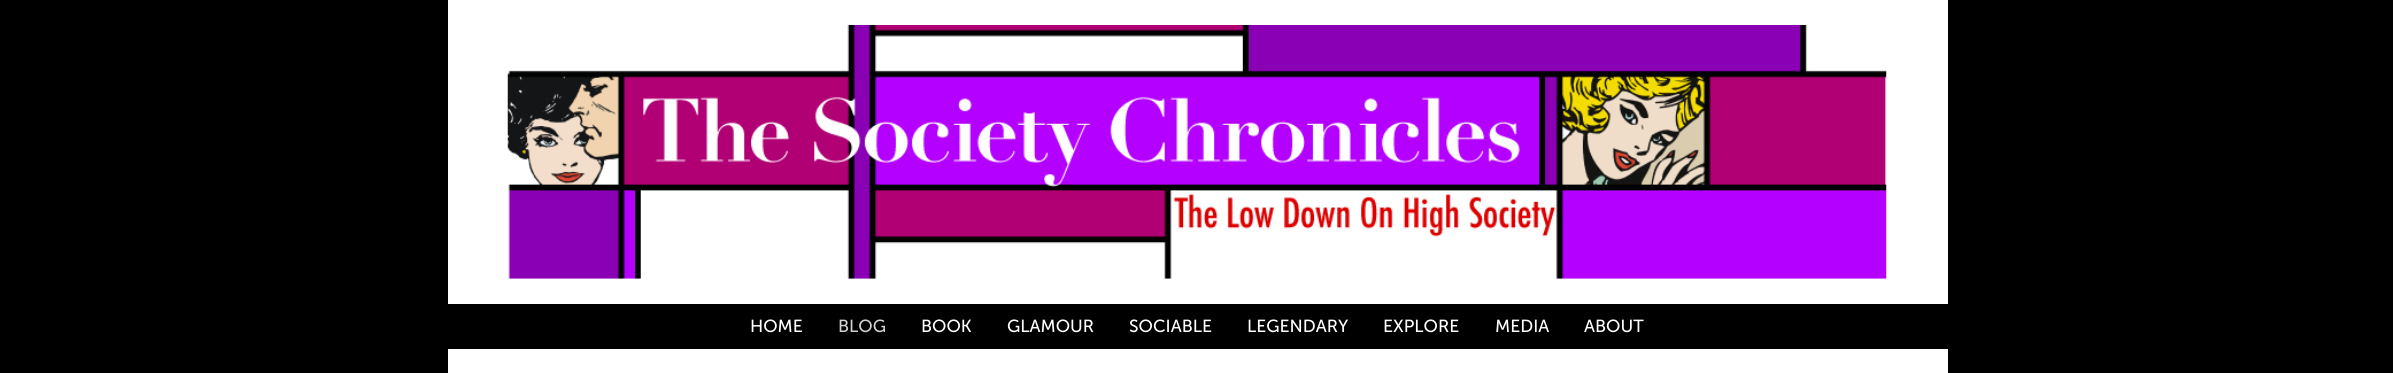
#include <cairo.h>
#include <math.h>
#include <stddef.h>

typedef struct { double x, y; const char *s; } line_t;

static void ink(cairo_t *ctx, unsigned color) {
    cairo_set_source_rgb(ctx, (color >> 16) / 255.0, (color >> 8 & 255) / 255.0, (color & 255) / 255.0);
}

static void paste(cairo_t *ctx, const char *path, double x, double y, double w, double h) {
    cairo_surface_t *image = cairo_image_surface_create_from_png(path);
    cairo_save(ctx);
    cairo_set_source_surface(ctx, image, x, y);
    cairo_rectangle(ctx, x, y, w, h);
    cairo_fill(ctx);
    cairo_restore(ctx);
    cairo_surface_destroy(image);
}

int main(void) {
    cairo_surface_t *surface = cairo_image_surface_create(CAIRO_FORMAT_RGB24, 2393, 373);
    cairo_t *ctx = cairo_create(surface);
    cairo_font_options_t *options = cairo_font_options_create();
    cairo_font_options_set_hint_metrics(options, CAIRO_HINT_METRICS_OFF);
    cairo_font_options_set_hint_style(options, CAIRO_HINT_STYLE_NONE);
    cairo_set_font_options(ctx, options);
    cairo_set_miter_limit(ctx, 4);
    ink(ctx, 0x000000);
    cairo_paint(ctx);
    ink(ctx, 0xFFFFFF);
    cairo_rectangle(ctx, 448, 0, 1500, 373);
    cairo_fill(ctx);
    paste(ctx, "media/1.png", 507, 25, 1380, 254);
    ink(ctx, 0x000000);
    cairo_rectangle(ctx, 448, 304, 1500, 45);
    cairo_fill(ctx);
    cairo_select_font_face(ctx, "Museo Sans", CAIRO_FONT_SLANT_NORMAL, CAIRO_FONT_WEIGHT_NORMAL);
    cairo_set_font_size(ctx, 17.5);
    ink(ctx, 0xFFFFFF);
    cairo_move_to(ctx, 750, 332);
    cairo_show_text(ctx, "HOME");
    ink(ctx, 0xD1D1D1);
    cairo_move_to(ctx, 838, 332);
    cairo_show_text(ctx, "BLOG");
    ink(ctx, 0xFFFFFF);
    {
        static const line_t items[] = {
            {921, 332, "BOOK"},
            {1007, 332, "GLAMOUR"},
            {1129, 332, "SOCIABLE"},
            {1247, 332, "LEGENDARY"},
            {1383, 332, "EXPLORE"},
            {1495, 332, "MEDIA"},
            {1584, 332, "ABOUT"},
        };
        for (size_t i = 0; i < sizeof items / sizeof *items; i++) {
            cairo_move_to(ctx, items[i].x, items[i].y);
            cairo_show_text(ctx, items[i].s);
        }
    }
    cairo_surface_write_to_png(surface, "image.png");
    cairo_font_options_destroy(options);
    cairo_destroy(ctx);
    cairo_surface_destroy(surface);
    return 0;
}
